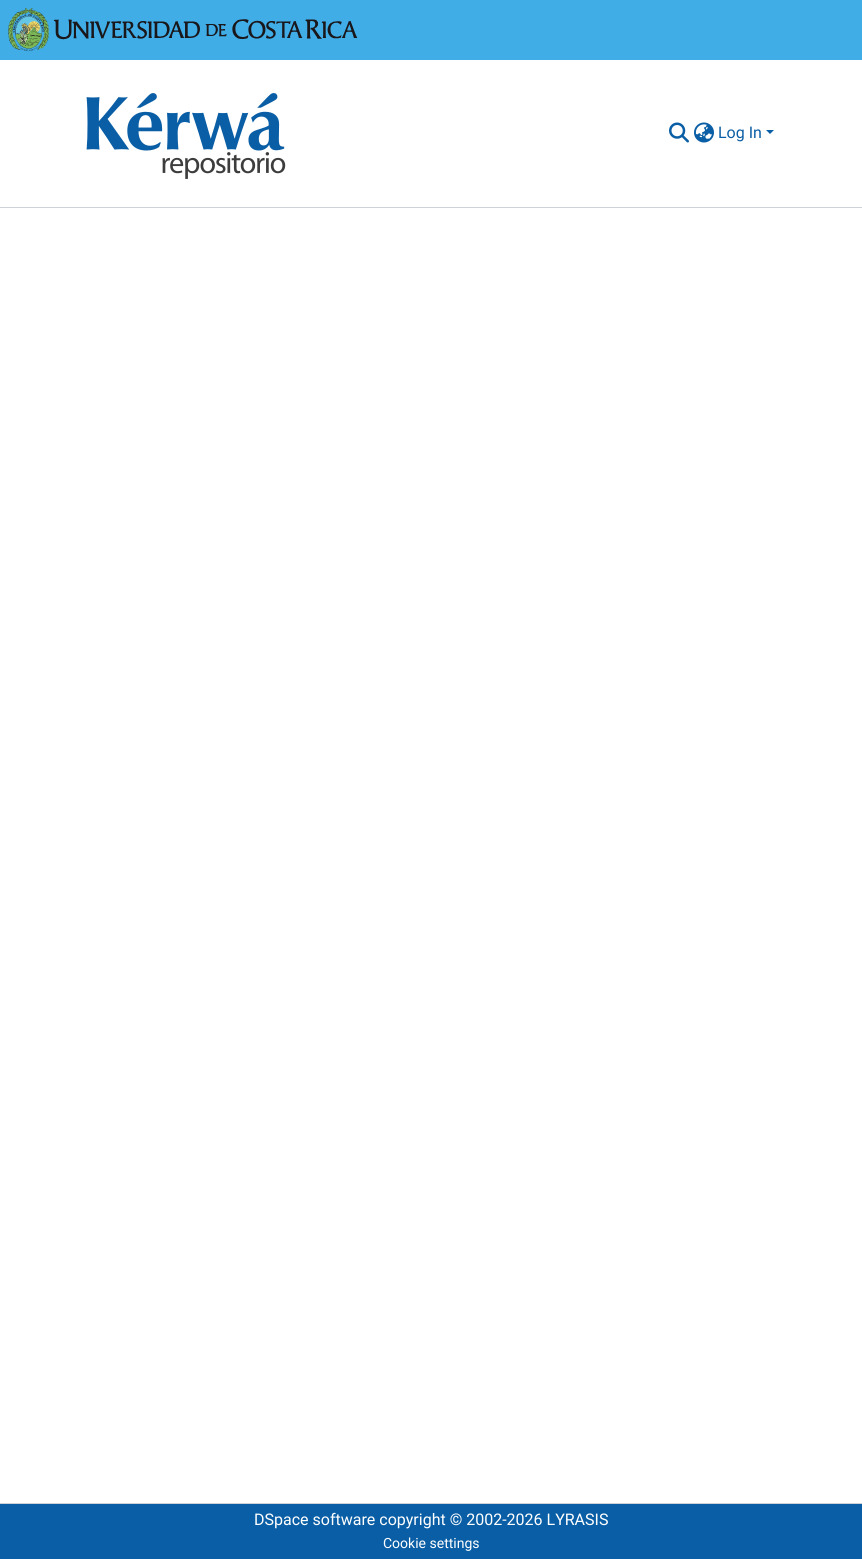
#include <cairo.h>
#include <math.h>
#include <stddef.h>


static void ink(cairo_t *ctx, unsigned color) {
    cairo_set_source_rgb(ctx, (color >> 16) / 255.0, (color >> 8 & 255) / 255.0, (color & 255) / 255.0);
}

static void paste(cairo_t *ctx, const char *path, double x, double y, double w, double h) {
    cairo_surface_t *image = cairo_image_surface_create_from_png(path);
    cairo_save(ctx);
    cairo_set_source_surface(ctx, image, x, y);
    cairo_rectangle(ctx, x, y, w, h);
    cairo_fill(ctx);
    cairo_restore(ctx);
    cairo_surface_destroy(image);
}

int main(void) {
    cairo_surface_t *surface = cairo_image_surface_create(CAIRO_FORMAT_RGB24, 862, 1559);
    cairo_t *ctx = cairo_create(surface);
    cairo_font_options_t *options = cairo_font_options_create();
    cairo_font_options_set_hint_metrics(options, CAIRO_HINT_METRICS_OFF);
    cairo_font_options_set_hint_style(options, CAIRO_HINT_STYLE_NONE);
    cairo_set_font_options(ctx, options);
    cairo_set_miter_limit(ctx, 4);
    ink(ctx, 0xFFFFFF);
    cairo_paint(ctx);
    ink(ctx, 0xCED4DA);
    cairo_rectangle(ctx, 0, 207, 862, 1);
    cairo_fill(ctx);
    ink(ctx, 0x41ADE7);
    cairo_rectangle(ctx, 0, 0, 862, 60);
    cairo_fill(ctx);
    paste(ctx, "media/1.png", 8, 8, 350, 44);
    paste(ctx, "media/2.png", 86, 93, 200, 86);
    paste(ctx, "media/3.png", 669, 122, 20, 21);
    paste(ctx, "media/4.png", 694, 122, 20, 21);
    cairo_select_font_face(ctx, "Roboto", CAIRO_FONT_SLANT_NORMAL, CAIRO_FONT_WEIGHT_NORMAL);
    cairo_set_font_size(ctx, 16);
    ink(ctx, 0x0A5EA5);
    cairo_move_to(ctx, 718, 138);
    cairo_show_text(ctx, "Log In");
    cairo_new_path(ctx);
    cairo_move_to(ctx, 766, 130);
    cairo_line_to(ctx, 774, 130);
    cairo_line_to(ctx, 770, 134);
    cairo_close_path(ctx);
    cairo_fill(ctx);
    cairo_rectangle(ctx, 0, 1504, 862, 55);
    cairo_fill(ctx);
    ink(ctx, 0xCED4DA);
    cairo_rectangle(ctx, 0, 1503, 862, 1);
    cairo_fill(ctx);
    ink(ctx, 0xFFFFFF);
    cairo_move_to(ctx, 254, 1525);
    cairo_show_text(ctx, "DSpace software copyright © 2002-2026 LYRASIS");
    cairo_set_font_size(ctx, 14);
    cairo_move_to(ctx, 383, 1548);
    cairo_show_text(ctx, "Cookie settings");
    cairo_surface_write_to_png(surface, "image.png");
    cairo_font_options_destroy(options);
    cairo_destroy(ctx);
    cairo_surface_destroy(surface);
    return 0;
}
